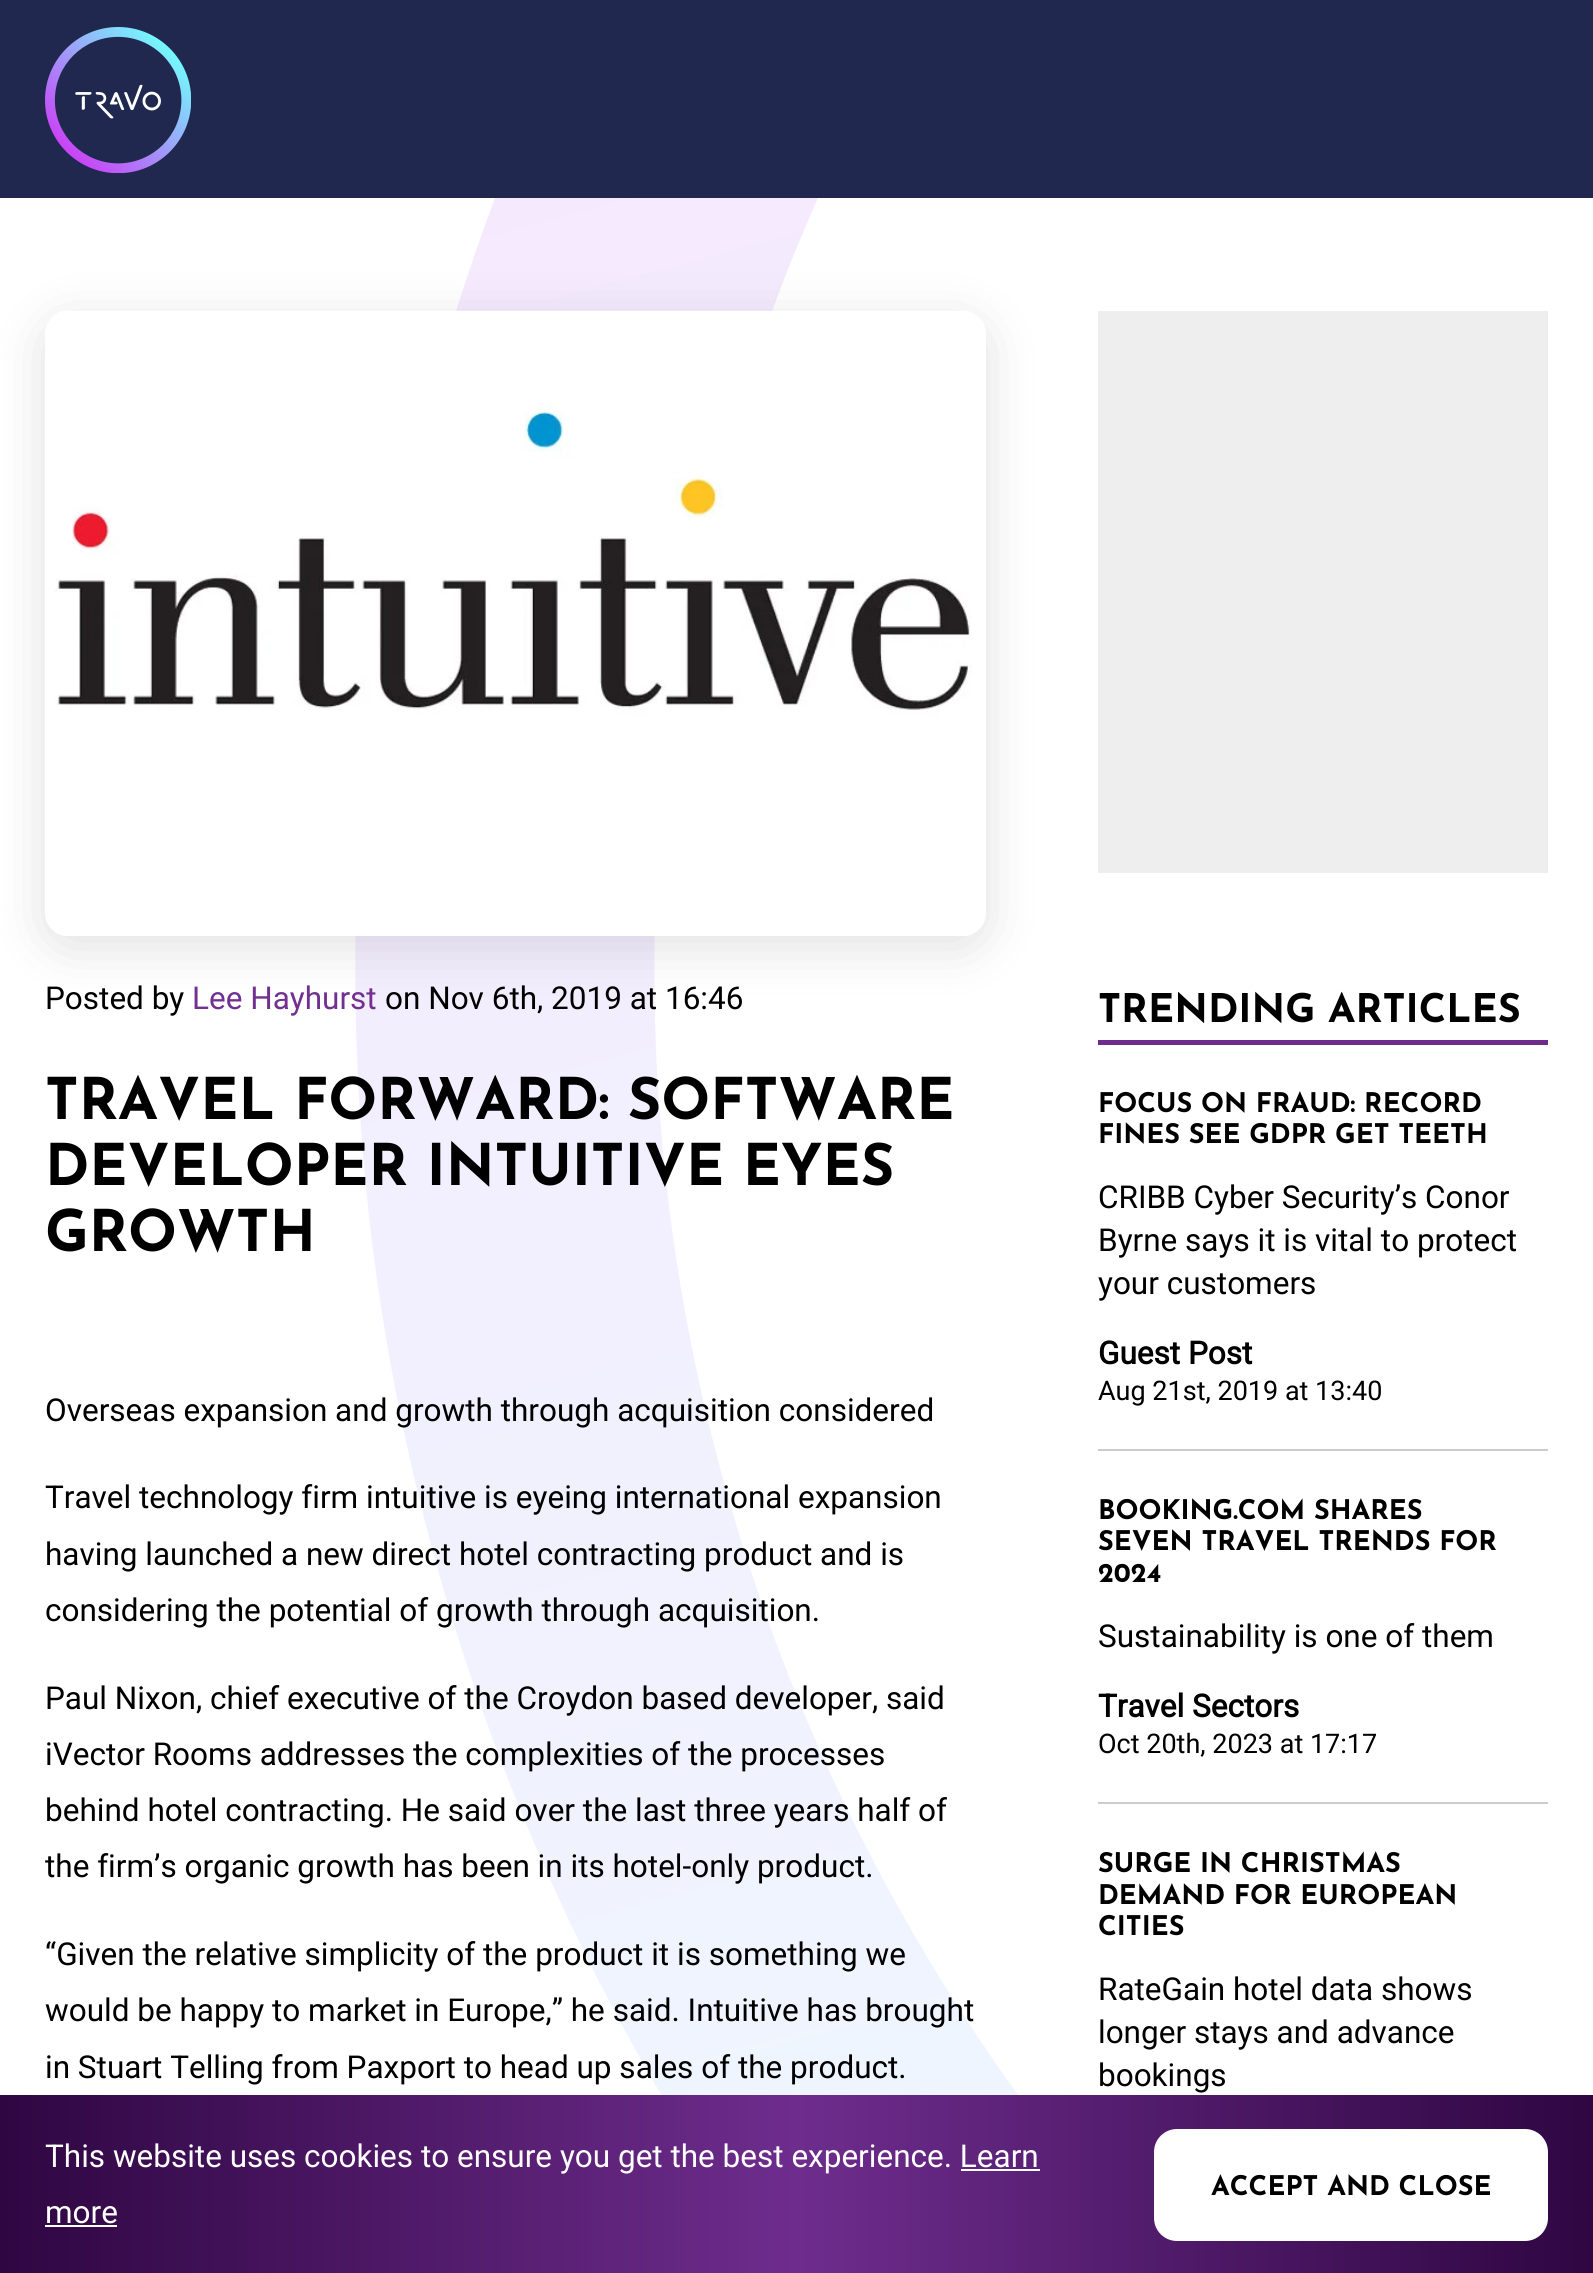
#include <cairo.h>
#include <math.h>
#include <stddef.h>

typedef struct { double x, y; const char *s; } line_t;

static void ink(cairo_t *ctx, unsigned color) {
    cairo_set_source_rgb(ctx, (color >> 16) / 255.0, (color >> 8 & 255) / 255.0, (color & 255) / 255.0);
}

static void round_path(cairo_t *ctx, double x, double y, double w, double h, double r) {
    cairo_new_sub_path(ctx);
    cairo_arc(ctx, x + w - r, y + h - r, r, 0, M_PI / 2);
    cairo_arc(ctx, x + r, y + h - r, r, M_PI / 2, M_PI);
    cairo_arc(ctx, x + r, y + r, r, M_PI, 1.5 * M_PI);
    cairo_arc(ctx, x + w - r, y + r, r, 1.5 * M_PI, 2 * M_PI);
    cairo_close_path(ctx);
}

static void blur_box(cairo_t *ctx, double x, double y, double w, double h, double r, double blur, double alpha) {
    cairo_push_group_with_content(ctx, CAIRO_CONTENT_ALPHA);
    cairo_set_operator(ctx, CAIRO_OPERATOR_SOURCE);
    for (int i = 15; i >= -15 && fmin(w, h) + blur * i / 3 > 0; i -= 2) {
        double e = blur * i / 6;
        cairo_set_source_rgba(ctx, 0, 0, 0, alpha * erfc((i - 1) / 8.5) / 2);
        round_path(ctx, x - e, y - e, w + 2 * e, h + 2 * e, fmax(0, fmin(r + e + blur * .6, fmin(w, h) / 2 + e)));
        cairo_fill(ctx);
    }
    cairo_pattern_t *soft = cairo_pop_group(ctx);
    cairo_mask(ctx, soft);
    cairo_pattern_destroy(soft);
}

static void paste(cairo_t *ctx, const char *path, double x, double y, double w, double h) {
    cairo_surface_t *image = cairo_image_surface_create_from_png(path);
    cairo_save(ctx);
    cairo_set_source_surface(ctx, image, x, y);
    cairo_rectangle(ctx, x, y, w, h);
    cairo_fill(ctx);
    cairo_restore(ctx);
    cairo_surface_destroy(image);
}

int main(void) {
    cairo_surface_t *surface = cairo_image_surface_create(CAIRO_FORMAT_RGB24, 1593, 2273);
    cairo_t *ctx = cairo_create(surface);
    cairo_font_options_t *options = cairo_font_options_create();
    cairo_font_options_set_hint_metrics(options, CAIRO_HINT_METRICS_OFF);
    cairo_font_options_set_hint_style(options, CAIRO_HINT_STYLE_NONE);
    cairo_set_font_options(ctx, options);
    cairo_set_miter_limit(ctx, 4);
    cairo_pattern_t *gradient;
    ink(ctx, 0xFFFFFF);
    cairo_paint(ctx);
    ink(ctx, 0x21284F);
    cairo_rectangle(ctx, 0, 0, 1593, 198);
    cairo_fill(ctx);
    paste(ctx, "media/1.png", 45, 27, 146, 146);
    paste(ctx, "media/2.png", 355, 198, 663, 1897);
    cairo_save(ctx);
    cairo_set_fill_rule(ctx, CAIRO_FILL_RULE_EVEN_ODD);
    cairo_new_path(ctx);
    cairo_move_to(ctx, 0, 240);
    cairo_line_to(ctx, 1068, 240);
    cairo_line_to(ctx, 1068, 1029);
    cairo_line_to(ctx, 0, 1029);
    cairo_close_path(ctx);
    cairo_move_to(ctx, 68, 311);
    cairo_line_to(ctx, 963, 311);
    cairo_curve_to(ctx, 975.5, 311, 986, 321.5, 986, 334);
    cairo_line_to(ctx, 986, 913);
    cairo_curve_to(ctx, 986, 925.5, 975.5, 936, 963, 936);
    cairo_line_to(ctx, 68, 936);
    cairo_curve_to(ctx, 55.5, 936, 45, 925.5, 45, 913);
    cairo_line_to(ctx, 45, 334);
    cairo_curve_to(ctx, 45, 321.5, 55.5, 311, 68, 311);
    cairo_close_path(ctx);
    cairo_clip(ctx);
    ink(ctx, 0x000000);
    blur_box(ctx, 45, 322, 941, 625, 23, 27, 0.12);
    cairo_restore(ctx);
    paste(ctx, "media/3.png", 54, 310, 918, 626);
    cairo_select_font_face(ctx, "Roboto", CAIRO_FONT_SLANT_NORMAL, CAIRO_FONT_WEIGHT_NORMAL);
    cairo_set_font_size(ctx, 31.5);
    ink(ctx, 0x000000);
    cairo_move_to(ctx, 45, 1009);
    cairo_show_text(ctx, "Posted by");
    ink(ctx, 0x723191);
    cairo_move_to(ctx, 192, 1009);
    cairo_show_text(ctx, "Lee Hayhurst");
    ink(ctx, 0x000000);
    cairo_move_to(ctx, 385, 1009);
    cairo_show_text(ctx, "on Nov 6th, 2019 at 16:46");
    cairo_select_font_face(ctx, "Josefin Sans", CAIRO_FONT_SLANT_NORMAL, CAIRO_FONT_WEIGHT_BOLD);
    cairo_set_font_size(ctx, 57.4);
    {
        static const line_t items[] = {
            {45, 1119, "TRAVEL FORWARD: SOFTWARE"},
            {45, 1185, "DEVELOPER INTUITIVE EYES"},
            {45, 1251, "GROWTH"},
        };
        for (size_t i = 0; i < sizeof items / sizeof *items; i++) {
            cairo_move_to(ctx, items[i].x, items[i].y);
            cairo_show_text(ctx, items[i].s);
        }
    }
    cairo_select_font_face(ctx, "Roboto", CAIRO_FONT_SLANT_NORMAL, CAIRO_FONT_WEIGHT_NORMAL);
    cairo_set_font_size(ctx, 31.5);
    {
        static const line_t items[] = {
            {45, 1421, "Overseas expansion and growth through acquisition considered"},
            {45, 1508, "Travel technology firm intuitive is eyeing international expansion"},
            {45, 1565, "having launched a new direct hotel contracting product and is"},
            {45, 1621, "considering the potential of growth through acquisition."},
            {45, 1709, "Paul Nixon, chief executive of the Croydon based developer, said"},
            {45, 1765, "iVector Rooms addresses the complexities of the processes"},
            {45, 1821, "behind hotel contracting. He said over the last three years half of"},
            {45, 1877, "the firm’s organic growth has been in its hotel-only product."},
            {45, 1965, "“Given the relative simplicity of the product it is something we"},
            {45, 2021, "would be happy to market in Europe,” he said. Intuitive has brought"},
            {45, 2078, "in Stuart Telling from Paxport to head up sales of the product."},
        };
        for (size_t i = 0; i < sizeof items / sizeof *items; i++) {
            cairo_move_to(ctx, items[i].x, items[i].y);
            cairo_show_text(ctx, items[i].s);
        }
    }
    ink(ctx, 0xEEEEEE);
    cairo_rectangle(ctx, 1098, 311, 450, 562);
    cairo_fill(ctx);
    ink(ctx, 0x6E2D8D);
    cairo_rectangle(ctx, 1098, 1040, 450, 5);
    cairo_fill(ctx);
    cairo_select_font_face(ctx, "Josefin Sans", CAIRO_FONT_SLANT_NORMAL, CAIRO_FONT_WEIGHT_BOLD);
    cairo_set_font_size(ctx, 39.4);
    ink(ctx, 0x000000);
    cairo_move_to(ctx, 1098, 1022);
    cairo_show_text(ctx, "TRENDING ARTICLES");
    ink(ctx, 0xCCCCCC);
    cairo_rectangle(ctx, 1098, 1449, 450, 2);
    cairo_fill(ctx);
    cairo_set_font_size(ctx, 27);
    ink(ctx, 0x000000);
    cairo_move_to(ctx, 1098, 1112);
    cairo_show_text(ctx, "FOCUS ON FRAUD: RECORD");
    cairo_move_to(ctx, 1098, 1143);
    cairo_show_text(ctx, "FINES SEE GDPR GET TEETH");
    cairo_select_font_face(ctx, "Roboto", CAIRO_FONT_SLANT_NORMAL, CAIRO_FONT_WEIGHT_NORMAL);
    cairo_set_font_size(ctx, 31.5);
    {
        static const line_t items[] = {
            {1098, 1208, "CRIBB Cyber Security’s Conor"},
            {1098, 1251, "Byrne says it is vital to protect"},
            {1098, 1294, "your customers"},
        };
        for (size_t i = 0; i < sizeof items / sizeof *items; i++) {
            cairo_move_to(ctx, items[i].x, items[i].y);
            cairo_show_text(ctx, items[i].s);
        }
    }
    cairo_select_font_face(ctx, "Roboto", CAIRO_FONT_SLANT_NORMAL, CAIRO_FONT_WEIGHT_BOLD);
    cairo_move_to(ctx, 1098, 1364);
    cairo_show_text(ctx, "Guest Post");
    cairo_select_font_face(ctx, "Roboto", CAIRO_FONT_SLANT_NORMAL, CAIRO_FONT_WEIGHT_NORMAL);
    cairo_set_font_size(ctx, 27);
    cairo_move_to(ctx, 1098, 1400);
    cairo_show_text(ctx, "Aug 21st, 2019 at 13:40");
    ink(ctx, 0xCCCCCC);
    cairo_rectangle(ctx, 1098, 1802, 450, 2);
    cairo_fill(ctx);
    cairo_select_font_face(ctx, "Josefin Sans", CAIRO_FONT_SLANT_NORMAL, CAIRO_FONT_WEIGHT_BOLD);
    ink(ctx, 0x000000);
    {
        static const line_t items[] = {
            {1098, 1519, "BOOKING.COM SHARES"},
            {1098, 1550, "SEVEN TRAVEL TRENDS FOR"},
            {1098, 1582, "2024"},
        };
        for (size_t i = 0; i < sizeof items / sizeof *items; i++) {
            cairo_move_to(ctx, items[i].x, items[i].y);
            cairo_show_text(ctx, items[i].s);
        }
    }
    cairo_select_font_face(ctx, "Roboto", CAIRO_FONT_SLANT_NORMAL, CAIRO_FONT_WEIGHT_NORMAL);
    cairo_set_font_size(ctx, 31.5);
    cairo_move_to(ctx, 1098, 1647);
    cairo_show_text(ctx, "Sustainability is one of them");
    cairo_select_font_face(ctx, "Roboto", CAIRO_FONT_SLANT_NORMAL, CAIRO_FONT_WEIGHT_BOLD);
    cairo_move_to(ctx, 1098, 1717);
    cairo_show_text(ctx, "Travel Sectors");
    cairo_select_font_face(ctx, "Roboto", CAIRO_FONT_SLANT_NORMAL, CAIRO_FONT_WEIGHT_NORMAL);
    cairo_set_font_size(ctx, 27);
    cairo_move_to(ctx, 1098, 1753);
    cairo_show_text(ctx, "Oct 20th, 2023 at 17:17");
    cairo_select_font_face(ctx, "Josefin Sans", CAIRO_FONT_SLANT_NORMAL, CAIRO_FONT_WEIGHT_BOLD);
    {
        static const line_t items[] = {
            {1098, 1872, "SURGE IN CHRISTMAS"},
            {1098, 1904, "DEMAND FOR EUROPEAN"},
            {1098, 1935, "CITIES"},
        };
        for (size_t i = 0; i < sizeof items / sizeof *items; i++) {
            cairo_move_to(ctx, items[i].x, items[i].y);
            cairo_show_text(ctx, items[i].s);
        }
    }
    cairo_select_font_face(ctx, "Roboto", CAIRO_FONT_SLANT_NORMAL, CAIRO_FONT_WEIGHT_NORMAL);
    cairo_set_font_size(ctx, 31.5);
    {
        static const line_t items[] = {
            {1098, 2000, "RateGain hotel data shows"},
            {1098, 2043, "longer stays and advance"},
            {1098, 2086, "bookings"},
        };
        for (size_t i = 0; i < sizeof items / sizeof *items; i++) {
            cairo_move_to(ctx, items[i].x, items[i].y);
            cairo_show_text(ctx, items[i].s);
        }
    }
    gradient = cairo_pattern_create_linear(0, 2185, 1593, 2185);
    cairo_pattern_add_color_stop_rgba(gradient, 0, 0.184, 0.024, 0.259, 1);
    cairo_pattern_add_color_stop_rgba(gradient, 0.5, 0.431, 0.176, 0.553, 1);
    cairo_pattern_add_color_stop_rgba(gradient, 1, 0.184, 0.024, 0.259, 1);
    cairo_set_source(ctx, gradient);
    cairo_pattern_destroy(gradient);
    cairo_rectangle(ctx, 0, 2095, 1593, 178);
    cairo_fill(ctx);
    ink(ctx, 0xFFFFFF);
    cairo_move_to(ctx, 45, 2167);
    cairo_show_text(ctx, "This website uses cookies to ensure you get the best experience. Learn");
    cairo_move_to(ctx, 45, 2223);
    cairo_show_text(ctx, "more");
    cairo_rectangle(ctx, 961, 2169, 79, 2);
    cairo_fill(ctx);
    cairo_rectangle(ctx, 45, 2225, 72, 2);
    cairo_fill(ctx);
    round_path(ctx, 1154, 2129, 394, 112, 23);
    cairo_fill(ctx);
    cairo_select_font_face(ctx, "Josefin Sans", CAIRO_FONT_SLANT_NORMAL, CAIRO_FONT_WEIGHT_BOLD);
    cairo_set_font_size(ctx, 27);
    ink(ctx, 0x000000);
    cairo_move_to(ctx, 1211, 2195);
    cairo_show_text(ctx, "ACCEPT AND CLOSE");
    cairo_surface_write_to_png(surface, "image.png");
    cairo_font_options_destroy(options);
    cairo_destroy(ctx);
    cairo_surface_destroy(surface);
    return 0;
}
